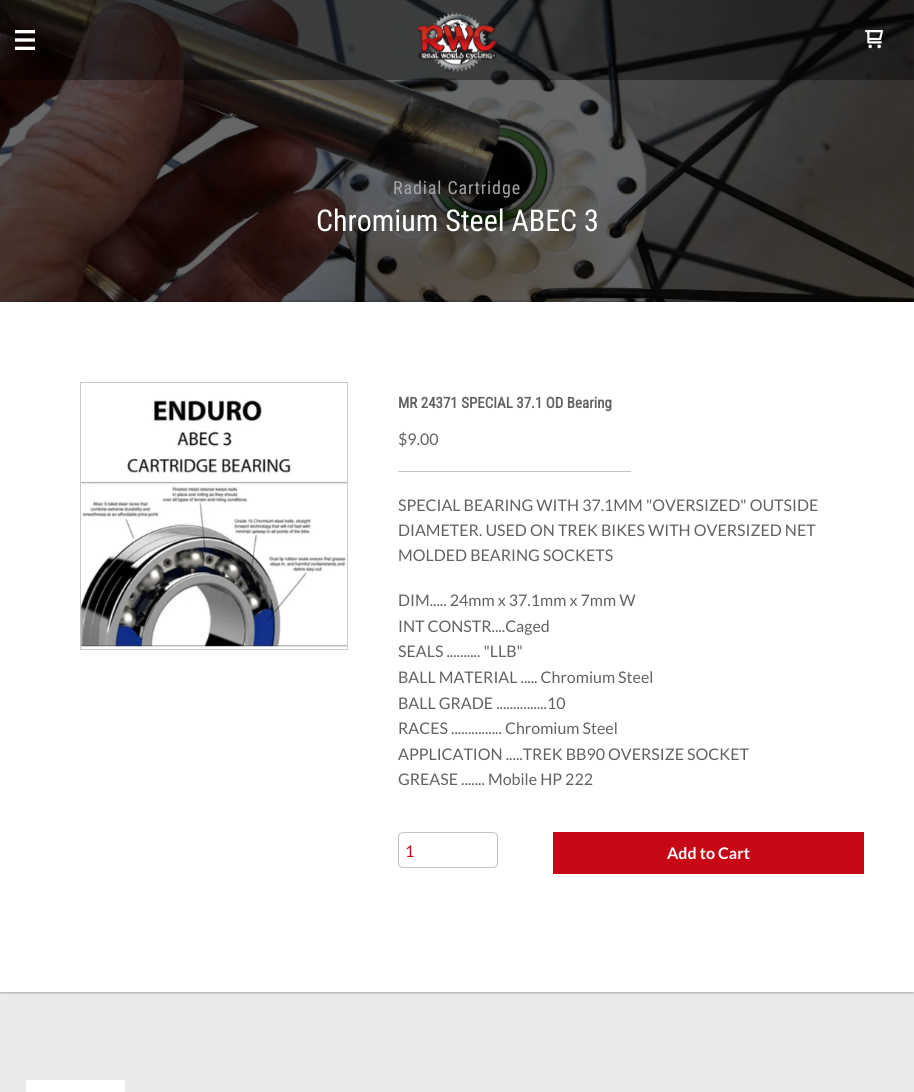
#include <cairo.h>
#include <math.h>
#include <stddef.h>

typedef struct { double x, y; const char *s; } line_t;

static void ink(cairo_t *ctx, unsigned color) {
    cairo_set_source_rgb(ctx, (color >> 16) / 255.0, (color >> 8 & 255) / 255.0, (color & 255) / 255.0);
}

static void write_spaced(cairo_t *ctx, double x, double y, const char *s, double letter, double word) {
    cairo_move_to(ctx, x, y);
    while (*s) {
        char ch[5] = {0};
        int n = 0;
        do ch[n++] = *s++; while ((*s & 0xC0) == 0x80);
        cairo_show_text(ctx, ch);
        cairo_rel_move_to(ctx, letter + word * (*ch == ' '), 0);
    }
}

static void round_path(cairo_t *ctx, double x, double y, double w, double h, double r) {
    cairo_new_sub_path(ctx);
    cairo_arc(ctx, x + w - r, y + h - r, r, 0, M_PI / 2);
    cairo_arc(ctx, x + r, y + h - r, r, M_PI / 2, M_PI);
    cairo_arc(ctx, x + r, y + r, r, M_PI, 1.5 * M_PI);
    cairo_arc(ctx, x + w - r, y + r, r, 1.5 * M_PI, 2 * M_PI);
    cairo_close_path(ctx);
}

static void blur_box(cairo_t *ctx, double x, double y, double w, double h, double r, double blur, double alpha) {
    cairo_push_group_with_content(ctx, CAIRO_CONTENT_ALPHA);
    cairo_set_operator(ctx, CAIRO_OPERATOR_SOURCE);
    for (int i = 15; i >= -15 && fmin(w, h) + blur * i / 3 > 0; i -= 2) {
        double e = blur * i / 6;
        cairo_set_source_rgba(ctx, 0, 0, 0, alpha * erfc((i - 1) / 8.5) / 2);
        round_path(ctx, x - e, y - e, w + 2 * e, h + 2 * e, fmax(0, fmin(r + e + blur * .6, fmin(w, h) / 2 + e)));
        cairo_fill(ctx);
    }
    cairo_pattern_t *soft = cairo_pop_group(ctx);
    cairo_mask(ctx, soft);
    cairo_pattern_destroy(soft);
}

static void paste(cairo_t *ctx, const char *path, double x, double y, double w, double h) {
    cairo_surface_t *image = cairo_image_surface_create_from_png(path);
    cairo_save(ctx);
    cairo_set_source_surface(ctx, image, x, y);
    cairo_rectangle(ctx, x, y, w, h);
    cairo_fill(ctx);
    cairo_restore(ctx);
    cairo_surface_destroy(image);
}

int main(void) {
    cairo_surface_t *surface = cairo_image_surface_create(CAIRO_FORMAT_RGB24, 914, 1092);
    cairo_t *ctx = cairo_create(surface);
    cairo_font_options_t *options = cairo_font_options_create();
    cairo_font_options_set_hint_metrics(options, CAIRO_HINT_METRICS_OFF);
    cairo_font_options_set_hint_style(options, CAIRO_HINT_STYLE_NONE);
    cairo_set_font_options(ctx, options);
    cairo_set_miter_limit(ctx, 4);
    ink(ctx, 0xEAEAEA);
    cairo_paint(ctx);
    paste(ctx, "media/4.png", 0, 0, 914, 302);
    cairo_set_source_rgba(ctx, 0, 0, 0, 0.6);
    cairo_rectangle(ctx, 0, 0, 914, 302);
    cairo_fill(ctx);
    cairo_set_source_rgba(ctx, 0, 0, 0, 0.4);
    cairo_rectangle(ctx, 0, 0, 914, 80);
    cairo_fill(ctx);
    paste(ctx, "media/1.png", 15, 30, 20, 20);
    paste(ctx, "media/2.png", 417, 12, 80, 60);
    paste(ctx, "media/3.png", 865, 30, 18, 19);
    cairo_select_font_face(ctx, "Roboto Condensed", CAIRO_FONT_SLANT_NORMAL, CAIRO_FONT_WEIGHT_NORMAL);
    cairo_set_font_size(ctx, 18);
    ink(ctx, 0xA6A6A6);
    write_spaced(ctx, 393, 194, "Radial Cartridge", 0.9, 0);
    cairo_set_font_size(ctx, 30);
    ink(ctx, 0xFFFFFF);
    cairo_move_to(ctx, 316, 231);
    cairo_show_text(ctx, "Chromium Steel ABEC 3");
    ink(ctx, 0x000000);
    blur_box(ctx, 0, 302, 914, 690, 0, 1.5, 0.5);
    ink(ctx, 0xFFFFFF);
    cairo_rectangle(ctx, 0, 302, 914, 690);
    cairo_fill(ctx);
    cairo_rectangle(ctx, 80.5, 382.5, 267, 267);
    ink(ctx, 0xC2C2C2);
    cairo_set_line_width(ctx, 1);
    cairo_stroke(ctx);
    paste(ctx, "media/5.png", 80, 382, 268, 268);
    cairo_select_font_face(ctx, "Roboto Condensed", CAIRO_FONT_SLANT_NORMAL, CAIRO_FONT_WEIGHT_BOLD);
    cairo_set_font_size(ctx, 15);
    ink(ctx, 0x626262);
    cairo_move_to(ctx, 398, 408);
    cairo_show_text(ctx, "MR 24371 SPECIAL 37.1 OD Bearing");
    cairo_select_font_face(ctx, "Lato", CAIRO_FONT_SLANT_NORMAL, CAIRO_FONT_WEIGHT_NORMAL);
    cairo_set_font_size(ctx, 16);
    cairo_move_to(ctx, 398, 445);
    cairo_show_text(ctx, "$9.00");
    ink(ctx, 0xC2C2C2);
    cairo_rectangle(ctx, 398, 471, 233, 1);
    cairo_fill(ctx);
    ink(ctx, 0x626262);
    {
        static const line_t items[] = {
            {398, 511, "SPECIAL BEARING WITH 37.1MM \"OVERSIZED\" OUTSIDE"},
            {398, 536, "DIAMETER. USED ON TREK BIKES WITH OVERSIZED NET"},
            {398, 561, "MOLDED BEARING SOCKETS"},
            {398, 606, "DIM..... 24mm x 37.1mm x 7mm W"},
            {398, 632, "INT CONSTR....Caged"},
            {398, 657, "SEALS .......... \"LLB\""},
            {398, 683, "BALL MATERIAL ..... Chromium Steel"},
            {398, 709, "BALL GRADE ...............10"},
            {398, 734, "RACES ............... Chromium Steel"},
            {398, 760, "APPLICATION .....TREK BB90 OVERSIZE SOCKET"},
            {398, 785, "GREASE ....... Mobile HP 222"},
        };
        for (size_t i = 0; i < sizeof items / sizeof *items; i++) {
            cairo_move_to(ctx, items[i].x, items[i].y);
            cairo_show_text(ctx, items[i].s);
        }
    }
    round_path(ctx, 398.5, 832.5, 99, 35, 4.5);
    ink(ctx, 0xC2C2C2);
    cairo_stroke(ctx);
    ink(ctx, 0xC60716);
    cairo_move_to(ctx, 405, 857);
    cairo_show_text(ctx, "1");
    cairo_rectangle(ctx, 553, 832, 311, 42);
    cairo_fill(ctx);
    cairo_select_font_face(ctx, "Lato", CAIRO_FONT_SLANT_NORMAL, CAIRO_FONT_WEIGHT_BOLD);
    ink(ctx, 0xFFFFFF);
    cairo_move_to(ctx, 667, 859);
    cairo_show_text(ctx, "Add to Cart");
    cairo_rectangle(ctx, 26, 1080, 99, 12);
    cairo_fill(ctx);
    cairo_surface_write_to_png(surface, "image.png");
    cairo_font_options_destroy(options);
    cairo_destroy(ctx);
    cairo_surface_destroy(surface);
    return 0;
}
